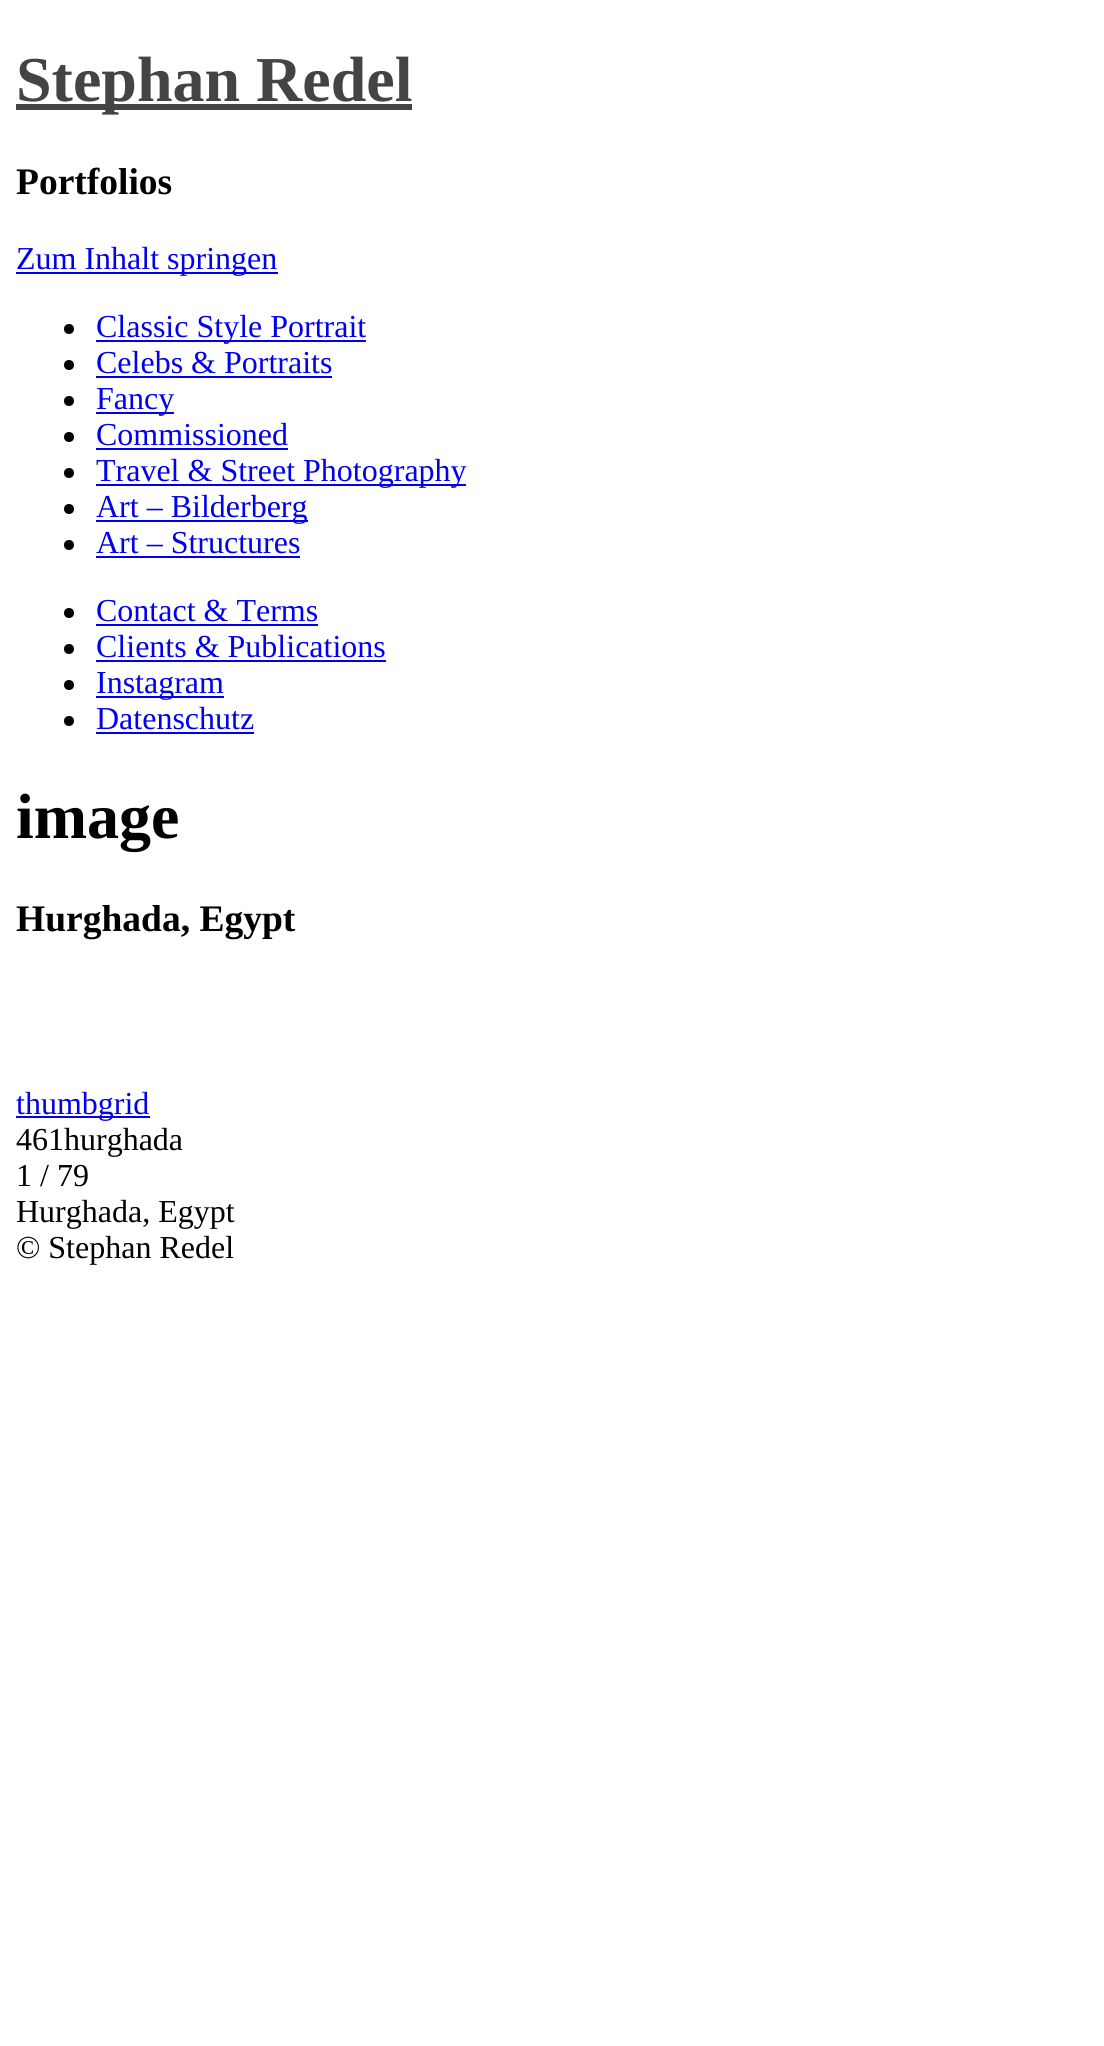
#include <cairo.h>
#include <math.h>
#include <stddef.h>

typedef struct { double x, y; const char *s; } line_t;

static void ink(cairo_t *ctx, unsigned color) {
    cairo_set_source_rgb(ctx, (color >> 16) / 255.0, (color >> 8 & 255) / 255.0, (color & 255) / 255.0);
}

int main(void) {
    cairo_surface_t *surface = cairo_image_surface_create(CAIRO_FORMAT_RGB24, 1104, 2046);
    cairo_t *ctx = cairo_create(surface);
    cairo_font_options_t *options = cairo_font_options_create();
    cairo_font_options_set_hint_metrics(options, CAIRO_HINT_METRICS_OFF);
    cairo_font_options_set_hint_style(options, CAIRO_HINT_STYLE_NONE);
    cairo_set_font_options(ctx, options);
    cairo_set_miter_limit(ctx, 4);
    ink(ctx, 0xFFFFFF);
    cairo_paint(ctx);
    ink(ctx, 0x444444);
    cairo_rectangle(ctx, 16, 104, 396, 6);
    cairo_fill(ctx);
    cairo_select_font_face(ctx, "Liberation Serif", CAIRO_FONT_SLANT_NORMAL, CAIRO_FONT_WEIGHT_BOLD);
    cairo_set_font_size(ctx, 64);
    cairo_move_to(ctx, 16, 101);
    cairo_show_text(ctx, "Stephan Redel");
    cairo_set_font_size(ctx, 37.5);
    ink(ctx, 0x000000);
    cairo_move_to(ctx, 16, 194);
    cairo_show_text(ctx, "Portfolios");
    ink(ctx, 0x0000EE);
    cairo_rectangle(ctx, 16, 272, 262, 2);
    cairo_fill(ctx);
    cairo_select_font_face(ctx, "Liberation Serif", CAIRO_FONT_SLANT_NORMAL, CAIRO_FONT_WEIGHT_NORMAL);
    cairo_set_font_size(ctx, 32);
    cairo_move_to(ctx, 16, 269);
    cairo_show_text(ctx, "Zum Inhalt springen");
    ink(ctx, 0x000000);
    cairo_new_path(ctx);
    cairo_arc(ctx, 69, 329, 5, 0, 2 * M_PI);
    cairo_fill(ctx);
    ink(ctx, 0x0000EE);
    cairo_rectangle(ctx, 96, 340, 270, 2);
    cairo_fill(ctx);
    cairo_move_to(ctx, 96, 337);
    cairo_show_text(ctx, "Classic Style Portrait");
    ink(ctx, 0x000000);
    cairo_new_path(ctx);
    cairo_arc(ctx, 69, 365, 5, 0, 2 * M_PI);
    cairo_fill(ctx);
    ink(ctx, 0x0000EE);
    cairo_move_to(ctx, 96, 373);
    cairo_show_text(ctx, "Celebs & Portraits");
    cairo_rectangle(ctx, 96, 376, 236, 2);
    cairo_fill(ctx);
    ink(ctx, 0x000000);
    cairo_arc(ctx, 69, 401, 5, 0, 2 * M_PI);
    cairo_fill(ctx);
    ink(ctx, 0x0000EE);
    cairo_rectangle(ctx, 96, 412, 78, 2);
    cairo_fill(ctx);
    cairo_move_to(ctx, 96, 409);
    cairo_show_text(ctx, "Fancy");
    ink(ctx, 0x000000);
    cairo_new_path(ctx);
    cairo_arc(ctx, 69, 437, 5, 0, 2 * M_PI);
    cairo_fill(ctx);
    ink(ctx, 0x0000EE);
    cairo_move_to(ctx, 96, 445);
    cairo_show_text(ctx, "Commissioned");
    cairo_rectangle(ctx, 96, 448, 192, 2);
    cairo_fill(ctx);
    ink(ctx, 0x000000);
    cairo_arc(ctx, 69, 473, 5, 0, 2 * M_PI);
    cairo_fill(ctx);
    ink(ctx, 0x0000EE);
    cairo_rectangle(ctx, 96, 484, 370, 2);
    cairo_fill(ctx);
    cairo_move_to(ctx, 96, 481);
    cairo_show_text(ctx, "Travel & Street Photography");
    ink(ctx, 0x000000);
    cairo_new_path(ctx);
    cairo_arc(ctx, 69, 509, 5, 0, 2 * M_PI);
    cairo_fill(ctx);
    ink(ctx, 0x0000EE);
    cairo_rectangle(ctx, 96, 520, 212, 2);
    cairo_fill(ctx);
    cairo_move_to(ctx, 96, 517);
    cairo_show_text(ctx, "Art – Bilderberg");
    ink(ctx, 0x000000);
    cairo_new_path(ctx);
    cairo_arc(ctx, 69, 545, 5, 0, 2 * M_PI);
    cairo_fill(ctx);
    ink(ctx, 0x0000EE);
    cairo_move_to(ctx, 96, 553);
    cairo_show_text(ctx, "Art – Structures");
    cairo_rectangle(ctx, 96, 556, 204, 2);
    cairo_fill(ctx);
    ink(ctx, 0x000000);
    cairo_arc(ctx, 69, 613, 5, 0, 2 * M_PI);
    cairo_fill(ctx);
    ink(ctx, 0x0000EE);
    cairo_move_to(ctx, 96, 621);
    cairo_show_text(ctx, "Contact & Terms");
    cairo_rectangle(ctx, 96, 624, 222, 2);
    cairo_fill(ctx);
    ink(ctx, 0x000000);
    cairo_arc(ctx, 69, 649, 5, 0, 2 * M_PI);
    cairo_fill(ctx);
    ink(ctx, 0x0000EE);
    cairo_move_to(ctx, 96, 657);
    cairo_show_text(ctx, "Clients & Publications");
    cairo_rectangle(ctx, 96, 660, 290, 2);
    cairo_fill(ctx);
    ink(ctx, 0x000000);
    cairo_arc(ctx, 69, 685, 5, 0, 2 * M_PI);
    cairo_fill(ctx);
    ink(ctx, 0x0000EE);
    cairo_rectangle(ctx, 96, 696, 128, 2);
    cairo_fill(ctx);
    cairo_move_to(ctx, 96, 693);
    cairo_show_text(ctx, "Instagram");
    ink(ctx, 0x000000);
    cairo_new_path(ctx);
    cairo_arc(ctx, 69, 721, 5, 0, 2 * M_PI);
    cairo_fill(ctx);
    ink(ctx, 0x0000EE);
    cairo_move_to(ctx, 96, 729);
    cairo_show_text(ctx, "Datenschutz");
    cairo_rectangle(ctx, 96, 732, 158, 2);
    cairo_fill(ctx);
    cairo_select_font_face(ctx, "Liberation Serif", CAIRO_FONT_SLANT_NORMAL, CAIRO_FONT_WEIGHT_BOLD);
    cairo_set_font_size(ctx, 64);
    ink(ctx, 0x000000);
    cairo_move_to(ctx, 16, 838);
    cairo_show_text(ctx, "image");
    cairo_set_font_size(ctx, 37.5);
    cairo_move_to(ctx, 16, 931);
    cairo_show_text(ctx, "Hurghada, Egypt");
    ink(ctx, 0x0000EE);
    cairo_rectangle(ctx, 16, 1116, 134, 2);
    cairo_fill(ctx);
    cairo_select_font_face(ctx, "Liberation Serif", CAIRO_FONT_SLANT_NORMAL, CAIRO_FONT_WEIGHT_NORMAL);
    cairo_set_font_size(ctx, 32);
    cairo_move_to(ctx, 16, 1114);
    cairo_show_text(ctx, "thumbgrid");
    ink(ctx, 0x000000);
    {
        static const line_t items[] = {
            {16, 1150, "461hurghada"},
            {16, 1186, "1 / 79"},
            {16, 1222, "Hurghada, Egypt"},
            {16, 1258, "© Stephan Redel"},
        };
        for (size_t i = 0; i < sizeof items / sizeof *items; i++) {
            cairo_move_to(ctx, items[i].x, items[i].y);
            cairo_show_text(ctx, items[i].s);
        }
    }
    cairo_surface_write_to_png(surface, "image.png");
    cairo_font_options_destroy(options);
    cairo_destroy(ctx);
    cairo_surface_destroy(surface);
    return 0;
}
